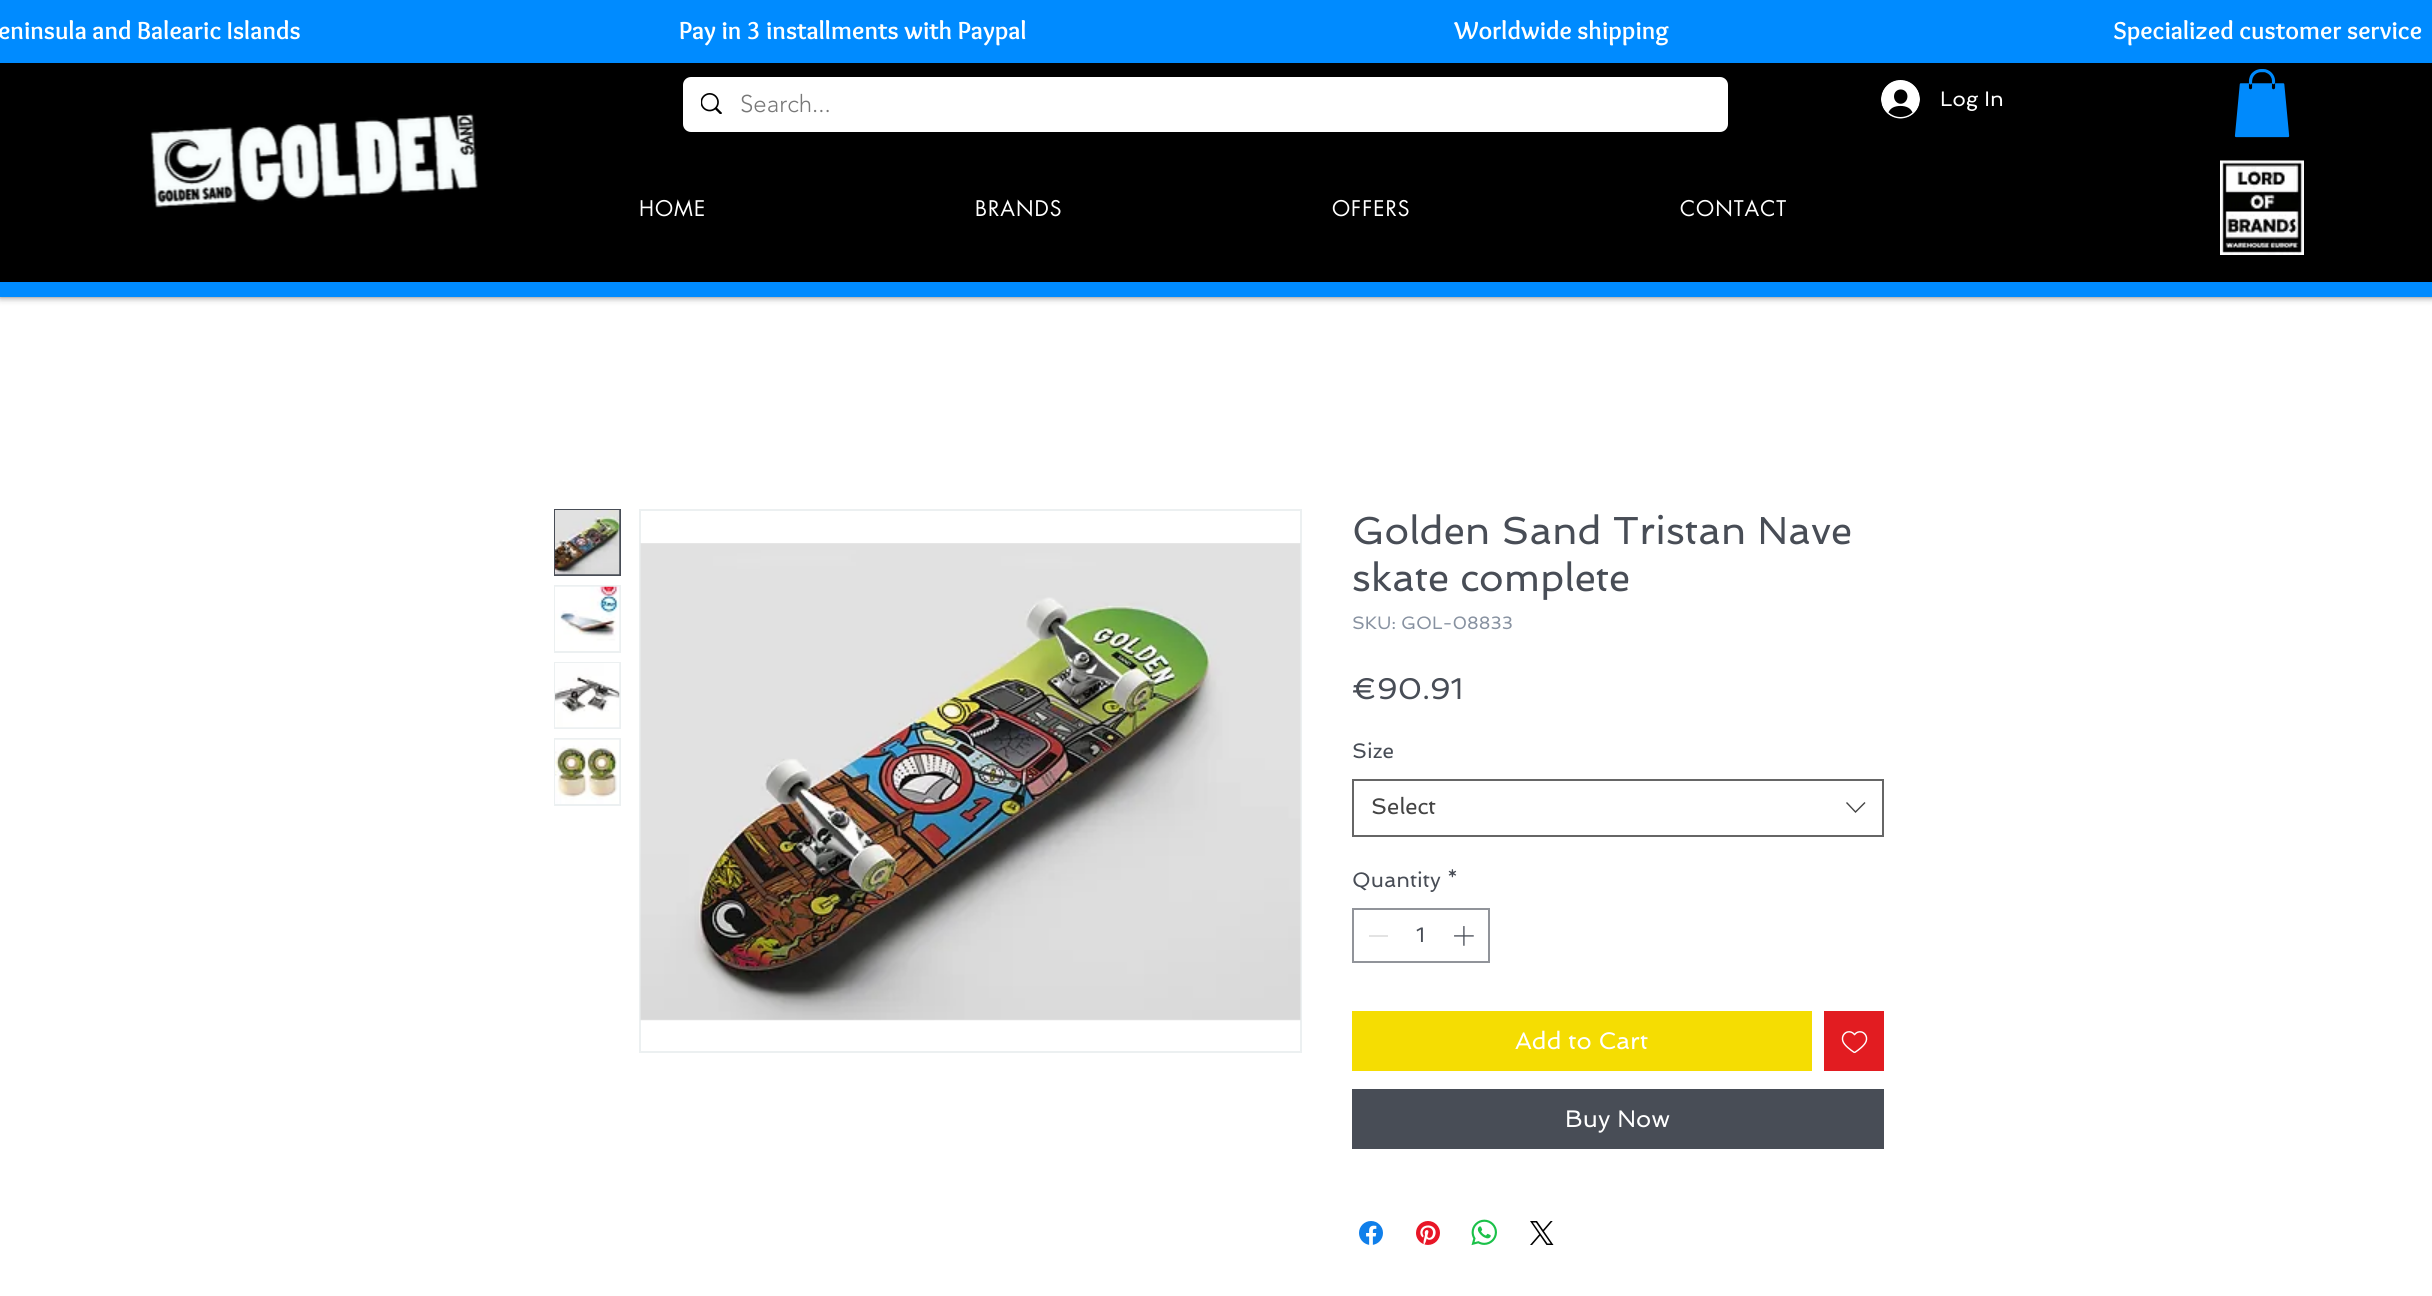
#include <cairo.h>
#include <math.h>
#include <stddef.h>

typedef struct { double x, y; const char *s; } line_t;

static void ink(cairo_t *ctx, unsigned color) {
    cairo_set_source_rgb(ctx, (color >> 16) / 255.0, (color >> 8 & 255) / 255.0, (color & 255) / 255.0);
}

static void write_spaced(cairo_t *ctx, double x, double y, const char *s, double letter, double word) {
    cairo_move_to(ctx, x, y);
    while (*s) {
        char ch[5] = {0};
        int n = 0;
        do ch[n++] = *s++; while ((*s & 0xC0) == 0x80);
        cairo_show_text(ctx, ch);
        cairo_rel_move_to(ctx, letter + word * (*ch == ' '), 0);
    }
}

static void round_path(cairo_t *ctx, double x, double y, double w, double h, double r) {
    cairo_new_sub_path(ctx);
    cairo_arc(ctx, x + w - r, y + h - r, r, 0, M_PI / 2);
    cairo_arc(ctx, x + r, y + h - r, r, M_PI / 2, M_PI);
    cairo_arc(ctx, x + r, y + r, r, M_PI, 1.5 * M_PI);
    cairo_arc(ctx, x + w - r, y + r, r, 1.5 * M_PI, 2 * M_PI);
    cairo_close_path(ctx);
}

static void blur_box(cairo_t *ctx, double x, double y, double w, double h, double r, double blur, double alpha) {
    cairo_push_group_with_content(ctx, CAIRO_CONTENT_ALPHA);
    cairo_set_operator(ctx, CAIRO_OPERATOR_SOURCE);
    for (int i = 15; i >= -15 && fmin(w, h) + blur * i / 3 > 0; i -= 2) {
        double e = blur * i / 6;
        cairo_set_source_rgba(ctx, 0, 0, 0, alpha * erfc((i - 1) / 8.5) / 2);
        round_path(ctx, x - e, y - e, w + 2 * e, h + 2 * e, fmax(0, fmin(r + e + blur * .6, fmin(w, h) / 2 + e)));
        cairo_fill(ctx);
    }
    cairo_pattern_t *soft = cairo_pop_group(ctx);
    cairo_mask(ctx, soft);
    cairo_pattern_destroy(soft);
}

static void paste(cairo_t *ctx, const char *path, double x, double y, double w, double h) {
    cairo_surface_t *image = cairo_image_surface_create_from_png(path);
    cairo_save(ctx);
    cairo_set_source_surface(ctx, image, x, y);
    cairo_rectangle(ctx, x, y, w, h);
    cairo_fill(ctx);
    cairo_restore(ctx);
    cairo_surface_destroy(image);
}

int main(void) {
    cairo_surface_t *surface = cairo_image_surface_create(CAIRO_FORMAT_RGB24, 2432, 1296);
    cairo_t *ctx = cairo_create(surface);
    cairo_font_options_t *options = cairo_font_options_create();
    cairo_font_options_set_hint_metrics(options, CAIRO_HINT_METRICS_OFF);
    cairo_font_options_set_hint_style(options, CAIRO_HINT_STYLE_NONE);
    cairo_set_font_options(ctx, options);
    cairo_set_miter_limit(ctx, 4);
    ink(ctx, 0xFFFFFF);
    cairo_paint(ctx);
    ink(ctx, 0x000000);
    blur_box(ctx, 0, 0, 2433, 296, 0, 4, 0.7);
    ink(ctx, 0x000000);
    cairo_rectangle(ctx, 0, 63, 2432, 219);
    cairo_fill(ctx);
    ink(ctx, 0x008BFF);
    cairo_rectangle(ctx, 0, 0, 2432, 63);
    cairo_fill(ctx);
    cairo_select_font_face(ctx, "Overlock", CAIRO_FONT_SLANT_NORMAL, CAIRO_FONT_WEIGHT_BOLD);
    cairo_set_font_size(ctx, 25.5);
    ink(ctx, 0xFFFFFF);
    cairo_move_to(ctx, -2, 39);
    cairo_show_text(ctx, "eninsula and Balearic Islands                                                                     Pay in 3 installments with Paypal                                                                              Worldwide shipping                                                                                 Specialized customer service");
    round_path(ctx, 683, 77, 1045, 55, 8);
    cairo_fill(ctx);
    paste(ctx, "media/1.png", 701, 93, 21, 21);
    cairo_select_font_face(ctx, "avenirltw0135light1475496 Light", CAIRO_FONT_SLANT_NORMAL, CAIRO_FONT_WEIGHT_NORMAL);
    cairo_set_font_size(ctx, 24);
    ink(ctx, 0x787878);
    cairo_move_to(ctx, 740, 112);
    cairo_show_text(ctx, "Search...");
    paste(ctx, "media/2.png", 1881, 80, 39, 39);
    cairo_select_font_face(ctx, "Spinnaker", CAIRO_FONT_SLANT_NORMAL, CAIRO_FONT_WEIGHT_NORMAL);
    cairo_set_font_size(ctx, 21);
    ink(ctx, 0xFFFFFF);
    cairo_move_to(ctx, 1940, 106);
    cairo_show_text(ctx, "Log In");
    paste(ctx, "media/3.png", 2234, 69, 56, 69);
    paste(ctx, "media/4.png", 150, 113, 328, 95);
    cairo_select_font_face(ctx, "futura", CAIRO_FONT_SLANT_NORMAL, CAIRO_FONT_WEIGHT_NORMAL);
    {
        static const line_t items[] = {
            {639, 216, "HOME"},
            {975, 216, "BRANDS"},
            {1332, 216, "OFFERS"},
            {1680, 216, "CONTACT"},
        };
        for (size_t i = 0; i < sizeof items / sizeof *items; i++) {
            write_spaced(ctx, items[i].x, items[i].y, items[i].s, 1, 0);
        }
    }
    paste(ctx, "media/5.png", 2220, 160, 84, 95);
    ink(ctx, 0x008BFF);
    cairo_rectangle(ctx, 0, 282, 2432, 15);
    cairo_fill(ctx);
    cairo_rectangle(ctx, 555, 510, 65, 65);
    ink(ctx, 0x484D56);
    cairo_stroke(ctx);
    paste(ctx, "media/6.png", 555, 510, 65, 65);
    cairo_rectangle(ctx, 555, 586, 65, 66);
    ink(ctx, 0xECF0F1);
    cairo_stroke(ctx);
    paste(ctx, "media/7.png", 555, 586, 65, 65);
    cairo_rectangle(ctx, 555, 663, 65, 65);
    cairo_stroke(ctx);
    paste(ctx, "media/8.png", 555, 663, 65, 65);
    cairo_rectangle(ctx, 555, 739, 65, 66);
    cairo_stroke(ctx);
    paste(ctx, "media/9.png", 555, 739, 65, 65);
    cairo_rectangle(ctx, 640, 510, 661, 542);
    cairo_stroke(ctx);
    paste(ctx, "media/10.png", 640, 543, 661, 478);
    cairo_select_font_face(ctx, "Spinnaker", CAIRO_FONT_SLANT_NORMAL, CAIRO_FONT_WEIGHT_NORMAL);
    cairo_set_font_size(ctx, 39);
    ink(ctx, 0x484D56);
    cairo_move_to(ctx, 1352, 544);
    cairo_show_text(ctx, "Golden Sand Tristan Nave");
    cairo_move_to(ctx, 1352, 591);
    cairo_show_text(ctx, "skate complete");
    cairo_set_font_size(ctx, 18);
    ink(ctx, 0x8892A1);
    cairo_move_to(ctx, 1352, 629);
    cairo_show_text(ctx, "SKU: GOL-08833");
    cairo_set_font_size(ctx, 30);
    ink(ctx, 0x484D56);
    cairo_move_to(ctx, 1352, 699);
    cairo_show_text(ctx, "€90.91");
    cairo_set_font_size(ctx, 21);
    cairo_move_to(ctx, 1352, 758);
    cairo_show_text(ctx, "Size");
    cairo_rectangle(ctx, 1353, 780, 530, 56);
    ink(ctx, 0x666666);
    cairo_stroke(ctx);
    cairo_set_font_size(ctx, 22.5);
    ink(ctx, 0x444444);
    cairo_move_to(ctx, 1371, 814);
    cairo_show_text(ctx, "Select");
    cairo_set_fill_rule(ctx, CAIRO_FILL_RULE_EVEN_ODD);
    cairo_new_path(ctx);
    cairo_move_to(ctx, 1864.5, 802);
    cairo_line_to(ctx, 1865.5, 803);
    cairo_line_to(ctx, 1855.5, 813);
    cairo_line_to(ctx, 1846, 803);
    cairo_line_to(ctx, 1847, 802);
    cairo_line_to(ctx, 1855.5, 811);
    cairo_close_path(ctx);
    cairo_fill(ctx);
    cairo_set_font_size(ctx, 21);
    ink(ctx, 0x484D56);
    cairo_move_to(ctx, 1352, 887);
    cairo_show_text(ctx, "Quantity *");
    cairo_rectangle(ctx, 1353, 909, 136, 53);
    ink(ctx, 0x91949A);
    cairo_stroke(ctx);
    ink(ctx, 0xE3E3E3);
    cairo_rectangle(ctx, 1369, 935, 19, 2);
    cairo_fill(ctx);
    ink(ctx, 0x484D56);
    cairo_move_to(ctx, 1416, 942);
    cairo_show_text(ctx, "1");
    paste(ctx, "media/11.png", 1454, 926, 20, 20);
    ink(ctx, 0xF5DD02);
    cairo_rectangle(ctx, 1352, 1011, 460, 60);
    cairo_fill(ctx);
    cairo_set_font_size(ctx, 24);
    ink(ctx, 0xFFFFFF);
    cairo_move_to(ctx, 1515, 1049);
    cairo_show_text(ctx, "Add to Cart");
    ink(ctx, 0xE21C21);
    cairo_rectangle(ctx, 1824, 1011, 60, 60);
    cairo_fill(ctx);
    paste(ctx, "media/12.png", 1841, 1031, 27, 23);
    ink(ctx, 0x484D56);
    cairo_rectangle(ctx, 1352, 1089, 532, 60);
    cairo_fill(ctx);
    ink(ctx, 0xFFFFFF);
    cairo_move_to(ctx, 1565, 1127);
    cairo_show_text(ctx, "Buy Now");
    paste(ctx, "media/13.png", 1359, 1221, 24, 24);
    paste(ctx, "media/14.png", 1416, 1221, 24, 24);
    paste(ctx, "media/15.png", 1471, 1219, 26, 27);
    paste(ctx, "media/16.png", 1530, 1221, 24, 24);
    cairo_surface_write_to_png(surface, "image.png");
    cairo_font_options_destroy(options);
    cairo_destroy(ctx);
    cairo_surface_destroy(surface);
    return 0;
}
